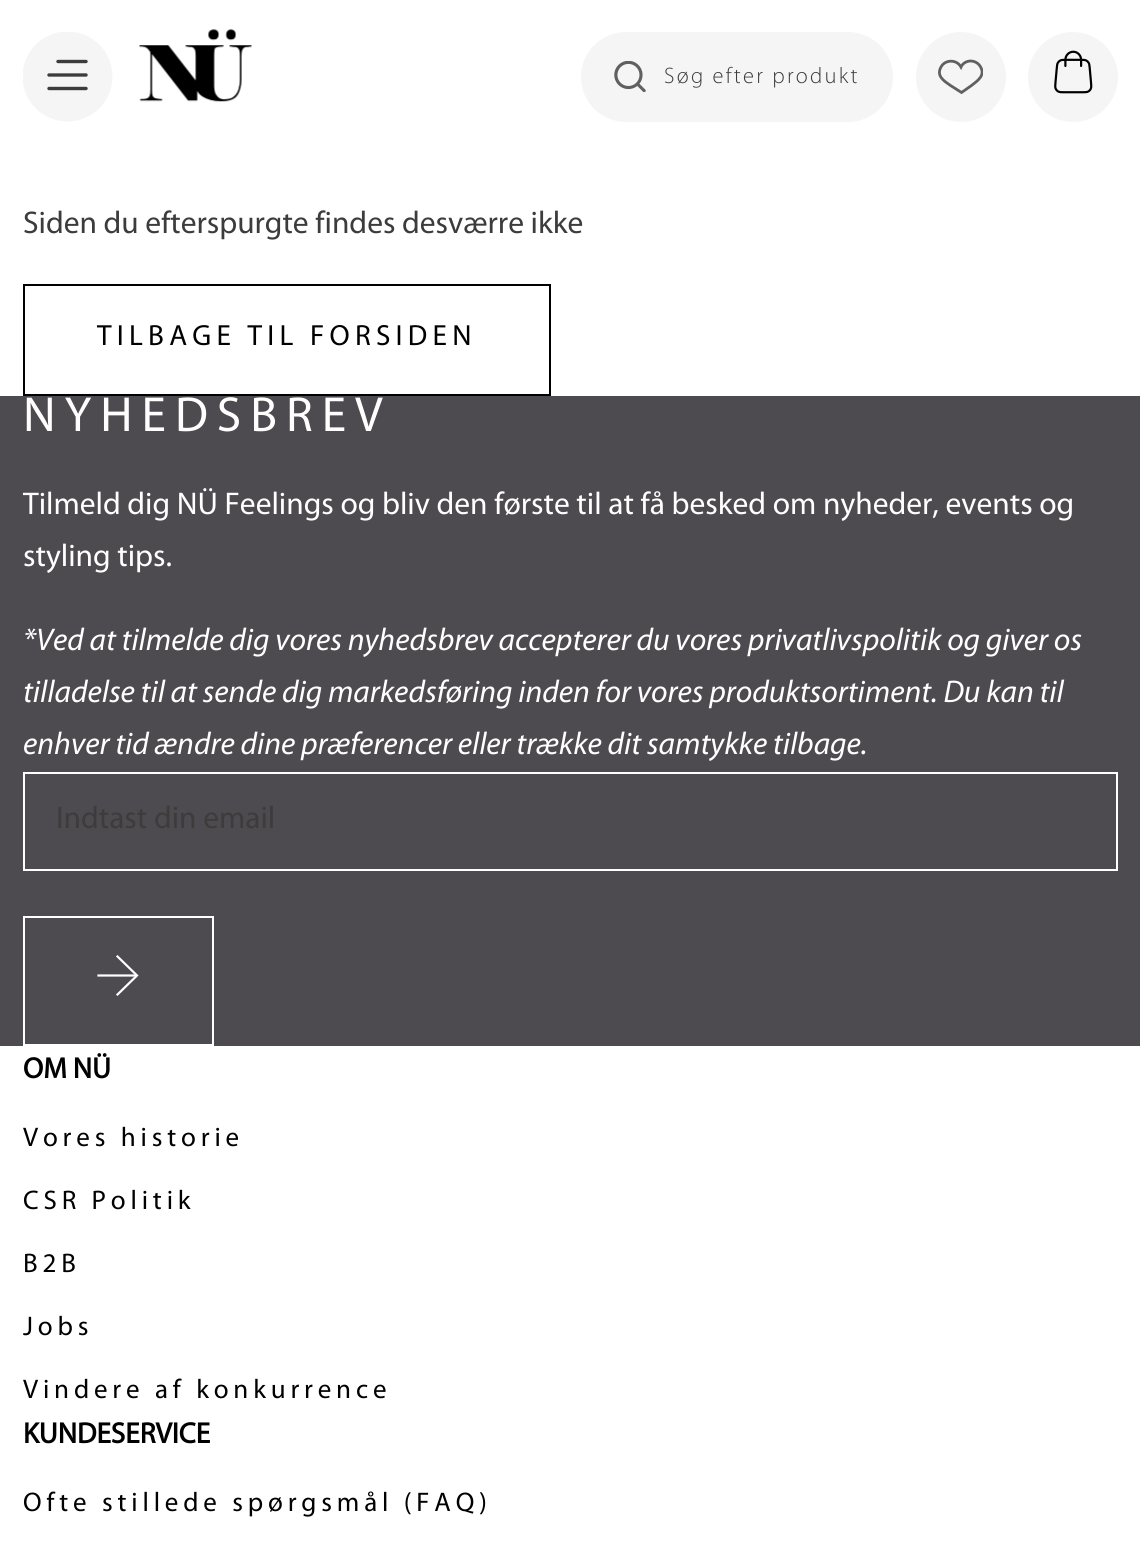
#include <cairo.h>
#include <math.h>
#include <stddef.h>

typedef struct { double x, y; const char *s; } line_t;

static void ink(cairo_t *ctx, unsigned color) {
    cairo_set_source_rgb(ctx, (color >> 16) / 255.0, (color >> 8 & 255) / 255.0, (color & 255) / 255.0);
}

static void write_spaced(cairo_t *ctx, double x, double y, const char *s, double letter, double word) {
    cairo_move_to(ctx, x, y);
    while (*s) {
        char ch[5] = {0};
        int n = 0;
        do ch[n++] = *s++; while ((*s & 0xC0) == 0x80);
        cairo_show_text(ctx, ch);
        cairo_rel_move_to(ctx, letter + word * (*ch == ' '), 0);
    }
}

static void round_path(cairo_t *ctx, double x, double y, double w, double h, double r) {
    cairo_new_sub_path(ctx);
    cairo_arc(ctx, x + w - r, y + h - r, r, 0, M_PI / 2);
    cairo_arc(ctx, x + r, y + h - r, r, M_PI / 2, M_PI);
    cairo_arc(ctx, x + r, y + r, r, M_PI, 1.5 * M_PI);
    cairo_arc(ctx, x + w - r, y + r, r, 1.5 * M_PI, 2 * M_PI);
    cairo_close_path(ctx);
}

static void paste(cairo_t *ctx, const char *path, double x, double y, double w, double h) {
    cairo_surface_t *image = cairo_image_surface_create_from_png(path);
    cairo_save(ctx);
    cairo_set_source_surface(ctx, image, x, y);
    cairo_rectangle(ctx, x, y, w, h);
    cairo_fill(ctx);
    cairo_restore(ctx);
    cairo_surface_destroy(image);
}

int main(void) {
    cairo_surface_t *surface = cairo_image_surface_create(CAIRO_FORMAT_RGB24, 1140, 1545);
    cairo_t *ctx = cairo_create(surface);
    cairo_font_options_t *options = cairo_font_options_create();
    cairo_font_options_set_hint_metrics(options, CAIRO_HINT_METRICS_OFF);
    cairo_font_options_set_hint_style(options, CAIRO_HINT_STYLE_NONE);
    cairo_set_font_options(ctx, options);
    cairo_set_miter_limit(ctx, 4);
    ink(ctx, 0xFFFFFF);
    cairo_paint(ctx);
    cairo_save(ctx);
    cairo_rectangle(ctx, 23, 32, 90, 90);
    cairo_clip(ctx);
    ink(ctx, 0xF5F5F5);
    cairo_arc(ctx, 67.5, 76.5, 45, 0, 2 * M_PI);
    cairo_fill(ctx);
    cairo_restore(ctx);
    cairo_new_path(ctx);
    cairo_move_to(ctx, 58, 61.5);
    cairo_line_to(ctx, 86, 61.5);
    cairo_move_to(ctx, 49, 75);
    cairo_line_to(ctx, 86, 75);
    cairo_move_to(ctx, 49, 88.5);
    cairo_line_to(ctx, 86, 88.5);
    ink(ctx, 0x3C3C3C);
    cairo_set_line_width(ctx, 3.4);
    cairo_set_line_cap(ctx, CAIRO_LINE_CAP_ROUND);
    cairo_stroke(ctx);
    paste(ctx, "media/1.png", 139, 29, 113, 73);
    ink(ctx, 0xF5F5F5);
    round_path(ctx, 581, 32, 312, 90, 45);
    cairo_fill(ctx);
    paste(ctx, "media/2.png", 614, 61, 32, 31);
    cairo_select_font_face(ctx, "Myriad Light", CAIRO_FONT_SLANT_NORMAL, CAIRO_FONT_WEIGHT_NORMAL);
    cairo_set_font_size(ctx, 22.5);
    ink(ctx, 0x3C3C3C);
    write_spaced(ctx, 664, 83, "Søg efter produkt", 2.25, 0);
    ink(ctx, 0xF5F5F5);
    cairo_new_path(ctx);
    cairo_arc(ctx, 961, 77, 45, 0, 2 * M_PI);
    cairo_fill(ctx);
    cairo_save(ctx);
    cairo_rectangle(ctx, 938, 54, 45, 45);
    cairo_clip(ctx);
    cairo_new_path(ctx);
    cairo_move_to(ctx, 970.5, 61);
    cairo_curve_to(ctx, 974.5, 61, 978, 63, 980, 66);
    cairo_curve_to(ctx, 986, 75, 978, 80.5, 971.5, 85.5);
    cairo_line_to(ctx, 961.5, 92.5);
    cairo_line_to(ctx, 950.5, 85.5);
    cairo_curve_to(ctx, 944, 81, 936, 76, 941, 67);
    cairo_curve_to(ctx, 945, 59.5, 956.5, 59, 961, 67);
    cairo_curve_to(ctx, 962.5, 63.5, 966.5, 61, 970.5, 61);
    cairo_close_path(ctx);
    ink(ctx, 0x606060);
    cairo_set_line_width(ctx, 2.8);
    cairo_set_line_cap(ctx, CAIRO_LINE_CAP_BUTT);
    cairo_stroke(ctx);
    cairo_restore(ctx);
    cairo_arc(ctx, 1073, 77, 45, 0, 2 * M_PI);
    cairo_fill(ctx);
    paste(ctx, "media/3.png", 1054, 50, 39, 44);
    cairo_select_font_face(ctx, "Myriad", CAIRO_FONT_SLANT_NORMAL, CAIRO_FONT_WEIGHT_NORMAL);
    cairo_set_font_size(ctx, 31.5);
    ink(ctx, 0x3C3C3C);
    cairo_move_to(ctx, 23, 233);
    cairo_show_text(ctx, "Siden du efterspurgte findes desværre ikke");
    cairo_rectangle(ctx, 24, 285, 526, 110);
    ink(ctx, 0x000000);
    cairo_set_line_width(ctx, 2);
    cairo_set_line_cap(ctx, CAIRO_LINE_CAP_BUTT);
    cairo_stroke(ctx);
    cairo_set_font_size(ctx, 29.25);
    write_spaced(ctx, 97, 345, "TILBAGE TIL FORSIDEN", 5.25, 0);
    ink(ctx, 0x4D4B4F);
    cairo_rectangle(ctx, 0, 396, 1140, 650);
    cairo_fill(ctx);
    cairo_set_font_size(ctx, 49.5);
    ink(ctx, 0xFFFFFF);
    write_spaced(ctx, 23, 431, "NYHEDSBREV", 9, 0);
    cairo_set_font_size(ctx, 31.5);
    cairo_move_to(ctx, 23, 514);
    cairo_show_text(ctx, "Tilmeld dig NÜ Feelings og bliv den første til at få besked om nyheder, events og");
    cairo_move_to(ctx, 23, 566);
    cairo_show_text(ctx, "styling tips.");
    cairo_select_font_face(ctx, "Myriad", CAIRO_FONT_SLANT_ITALIC, CAIRO_FONT_WEIGHT_NORMAL);
    {
        static const line_t items[] = {
            {23, 650, "*Ved at tilmelde dig vores nyhedsbrev accepterer du vores privatlivspolitik og giver os"},
            {23, 702, "tilladelse til at sende dig markedsføring inden for vores produktsortiment. Du kan til"},
            {23, 754, "enhver tid ændre dine præferencer eller trække dit samtykke tilbage."},
        };
        for (size_t i = 0; i < sizeof items / sizeof *items; i++) {
            cairo_move_to(ctx, items[i].x, items[i].y);
            cairo_show_text(ctx, items[i].s);
        }
    }
    cairo_rectangle(ctx, 24, 773, 1093, 97);
    cairo_stroke(ctx);
    cairo_select_font_face(ctx, "Myriad", CAIRO_FONT_SLANT_NORMAL, CAIRO_FONT_WEIGHT_NORMAL);
    ink(ctx, 0x3C3C3C);
    cairo_move_to(ctx, 56, 828);
    cairo_show_text(ctx, "Indtast din email");
    cairo_rectangle(ctx, 24, 917, 189, 128);
    ink(ctx, 0xFFFFFF);
    cairo_stroke(ctx);
    cairo_new_path(ctx);
    cairo_move_to(ctx, 98.5, 975.5);
    cairo_line_to(ctx, 135, 975.5);
    cairo_set_line_width(ctx, 2.2);
    cairo_set_line_cap(ctx, CAIRO_LINE_CAP_SQUARE);
    cairo_set_line_join(ctx, CAIRO_LINE_JOIN_ROUND);
    cairo_stroke(ctx);
    cairo_new_path(ctx);
    cairo_move_to(ctx, 117.5, 956.5);
    cairo_line_to(ctx, 137, 975.5);
    cairo_line_to(ctx, 117.5, 994.5);
    cairo_set_line_join(ctx, CAIRO_LINE_JOIN_MITER);
    cairo_stroke(ctx);
    cairo_select_font_face(ctx, "Myriad", CAIRO_FONT_SLANT_NORMAL, CAIRO_FONT_WEIGHT_BOLD);
    cairo_set_font_size(ctx, 29.25);
    ink(ctx, 0x000000);
    cairo_move_to(ctx, 23, 1078);
    cairo_show_text(ctx, "OM NÜ");
    cairo_select_font_face(ctx, "Myriad", CAIRO_FONT_SLANT_NORMAL, CAIRO_FONT_WEIGHT_NORMAL);
    cairo_set_font_size(ctx, 27);
    {
        static const line_t items[] = {
            {23, 1146, "Vores historie"},
            {23, 1209, "CSR Politik"},
            {23, 1272, "B2B"},
            {23, 1335, "Jobs"},
            {23, 1398, "Vindere af konkurrence"},
        };
        for (size_t i = 0; i < sizeof items / sizeof *items; i++) {
            write_spaced(ctx, items[i].x, items[i].y, items[i].s, 4.85, 0);
        }
    }
    cairo_select_font_face(ctx, "Myriad", CAIRO_FONT_SLANT_NORMAL, CAIRO_FONT_WEIGHT_BOLD);
    cairo_set_font_size(ctx, 29.25);
    cairo_move_to(ctx, 23, 1443);
    cairo_show_text(ctx, "KUNDESERVICE");
    cairo_select_font_face(ctx, "Myriad", CAIRO_FONT_SLANT_NORMAL, CAIRO_FONT_WEIGHT_NORMAL);
    cairo_set_font_size(ctx, 27);
    write_spaced(ctx, 23, 1511, "Ofte stillede spørgsmål (FAQ)", 4.85, 0);
    cairo_surface_write_to_png(surface, "image.png");
    cairo_font_options_destroy(options);
    cairo_destroy(ctx);
    cairo_surface_destroy(surface);
    return 0;
}
